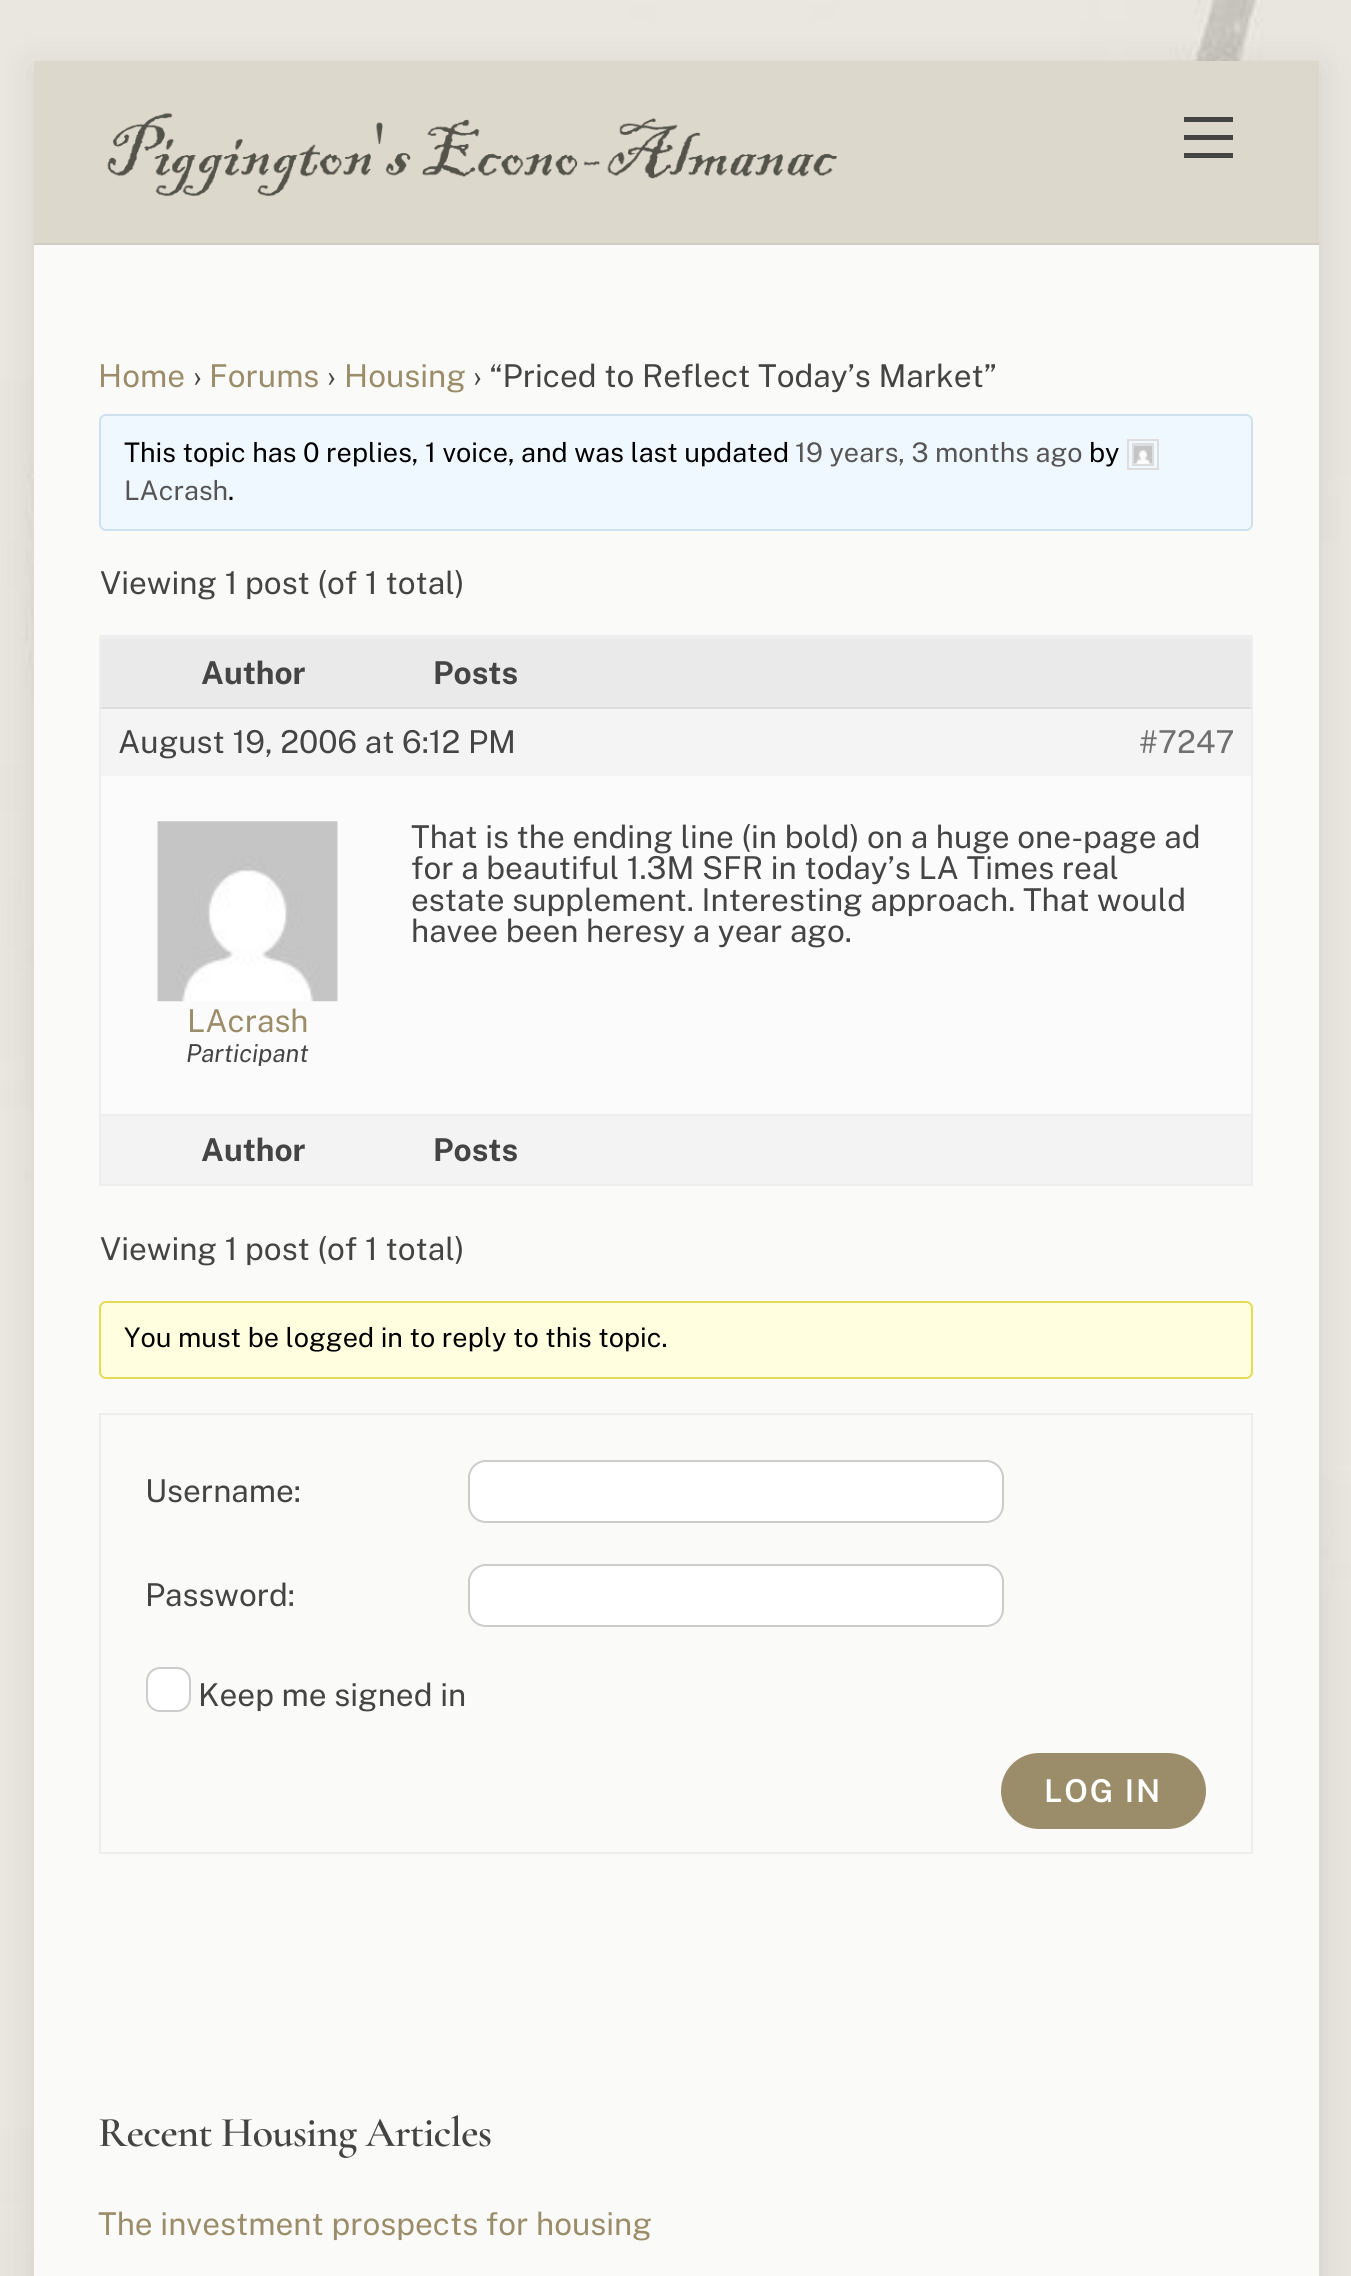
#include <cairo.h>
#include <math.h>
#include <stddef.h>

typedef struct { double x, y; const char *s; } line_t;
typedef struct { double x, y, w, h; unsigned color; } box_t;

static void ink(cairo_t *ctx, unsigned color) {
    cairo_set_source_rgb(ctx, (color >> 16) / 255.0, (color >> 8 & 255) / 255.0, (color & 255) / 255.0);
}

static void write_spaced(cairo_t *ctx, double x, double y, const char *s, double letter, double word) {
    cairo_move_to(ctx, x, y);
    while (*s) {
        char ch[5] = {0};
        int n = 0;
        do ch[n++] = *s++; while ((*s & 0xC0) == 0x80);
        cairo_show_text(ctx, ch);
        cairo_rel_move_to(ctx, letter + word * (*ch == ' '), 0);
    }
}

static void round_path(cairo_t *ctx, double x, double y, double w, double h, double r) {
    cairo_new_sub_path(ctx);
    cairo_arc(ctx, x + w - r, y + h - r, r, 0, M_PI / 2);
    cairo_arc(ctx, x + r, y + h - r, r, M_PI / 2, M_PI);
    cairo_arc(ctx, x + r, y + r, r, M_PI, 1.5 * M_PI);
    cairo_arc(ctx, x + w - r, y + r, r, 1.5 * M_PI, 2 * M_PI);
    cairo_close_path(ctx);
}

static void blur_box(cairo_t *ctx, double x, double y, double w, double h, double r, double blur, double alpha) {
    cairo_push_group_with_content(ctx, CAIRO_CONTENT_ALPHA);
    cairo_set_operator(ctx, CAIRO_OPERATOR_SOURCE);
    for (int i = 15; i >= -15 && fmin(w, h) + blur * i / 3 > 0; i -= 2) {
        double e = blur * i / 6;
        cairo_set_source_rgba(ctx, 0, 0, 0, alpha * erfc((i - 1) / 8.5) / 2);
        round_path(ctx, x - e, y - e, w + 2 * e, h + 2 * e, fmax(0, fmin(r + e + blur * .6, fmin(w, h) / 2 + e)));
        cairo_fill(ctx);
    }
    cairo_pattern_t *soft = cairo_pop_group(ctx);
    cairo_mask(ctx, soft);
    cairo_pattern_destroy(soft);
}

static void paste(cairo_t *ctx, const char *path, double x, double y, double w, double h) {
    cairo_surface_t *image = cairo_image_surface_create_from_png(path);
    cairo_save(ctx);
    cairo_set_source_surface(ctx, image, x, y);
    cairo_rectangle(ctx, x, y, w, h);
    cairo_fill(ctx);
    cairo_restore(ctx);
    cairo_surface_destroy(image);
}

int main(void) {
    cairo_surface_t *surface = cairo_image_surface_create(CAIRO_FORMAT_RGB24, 1351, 2276);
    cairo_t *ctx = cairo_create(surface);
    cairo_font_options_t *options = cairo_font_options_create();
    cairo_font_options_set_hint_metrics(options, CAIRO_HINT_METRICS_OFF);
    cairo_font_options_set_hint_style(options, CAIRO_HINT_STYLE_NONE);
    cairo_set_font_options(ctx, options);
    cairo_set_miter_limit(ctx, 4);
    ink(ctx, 0xFFFFFF);
    cairo_paint(ctx);
    paste(ctx, "media/1.png", 0, 0, 1351, 2276);
    ink(ctx, 0x000000);
    blur_box(ctx, 34, 68, 1285, 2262, 0, 18, 0.1);
    ink(ctx, 0xDDD8CC);
    cairo_rectangle(ctx, 34, 61, 1285, 182);
    cairo_fill(ctx);
    ink(ctx, 0xD2CDC2);
    cairo_rectangle(ctx, 34, 243, 1285, 2);
    cairo_fill(ctx);
    paste(ctx, "media/2.png", 107, 112, 730, 85);
    {
        static const box_t items[] = {
            {1184, 153, 49, 5, 0x444444},
            {1184, 117, 49, 5, 0x444444},
            {1184, 135, 49, 5, 0x444444},
            {34, 245, 1285, 2031, 0xFAFAF8},
        };
        for (size_t i = 0; i < sizeof items / sizeof *items; i++) {
            ink(ctx, items[i].color);
            cairo_rectangle(ctx, items[i].x, items[i].y, items[i].w, items[i].h);
            cairo_fill(ctx);
        }
    }
    cairo_select_font_face(ctx, "Public Sans", CAIRO_FONT_SLANT_NORMAL, CAIRO_FONT_WEIGHT_NORMAL);
    cairo_set_font_size(ctx, 31.5);
    ink(ctx, 0x9C8D6A);
    cairo_move_to(ctx, 98, 387);
    cairo_show_text(ctx, "Home");
    ink(ctx, 0x444444);
    cairo_move_to(ctx, 193, 387);
    cairo_show_text(ctx, "›");
    ink(ctx, 0x9C8D6A);
    cairo_move_to(ctx, 209, 387);
    cairo_show_text(ctx, "Forums");
    ink(ctx, 0x444444);
    cairo_move_to(ctx, 327, 387);
    cairo_show_text(ctx, "›");
    ink(ctx, 0x9C8D6A);
    cairo_move_to(ctx, 344, 387);
    cairo_show_text(ctx, "Housing");
    ink(ctx, 0x444444);
    cairo_move_to(ctx, 473, 387);
    cairo_show_text(ctx, "› “Priced to Reflect Today’s Market”");
    ink(ctx, 0xF0F8FF);
    round_path(ctx, 100, 415, 1152, 115, 6);
    cairo_fill_preserve(ctx);
    ink(ctx, 0xCEE1EF);
    cairo_stroke(ctx);
    cairo_set_font_size(ctx, 27);
    ink(ctx, 0x000000);
    cairo_move_to(ctx, 124, 462);
    cairo_show_text(ctx, "This topic has 0 replies, 1 voice, and was last updated");
    ink(ctx, 0x555555);
    cairo_move_to(ctx, 795, 462);
    cairo_show_text(ctx, "19 years, 3 months ago");
    ink(ctx, 0x000000);
    cairo_move_to(ctx, 1089, 462);
    cairo_show_text(ctx, "by");
    cairo_rectangle(ctx, 1128, 440, 30, 29);
    ink(ctx, 0xDDDDDD);
    cairo_stroke(ctx);
    cairo_rectangle(ctx, 1133, 444, 20, 21);
    cairo_stroke(ctx);
    paste(ctx, "media/3.png", 1134, 445, 18, 19);
    ink(ctx, 0x555555);
    cairo_move_to(ctx, 124, 500);
    cairo_show_text(ctx, "LAcrash");
    ink(ctx, 0x000000);
    cairo_move_to(ctx, 228, 500);
    cairo_show_text(ctx, ".");
    cairo_set_font_size(ctx, 31.5);
    ink(ctx, 0x444444);
    cairo_move_to(ctx, 100, 594);
    cairo_show_text(ctx, "Viewing 1 post (of 1 total)");
    cairo_rectangle(ctx, 100, 636, 1152, 549);
    ink(ctx, 0xEEEEEE);
    cairo_stroke(ctx);
    ink(ctx, 0xEAEAEA);
    cairo_rectangle(ctx, 101, 639, 1150, 68);
    cairo_fill(ctx);
    ink(ctx, 0xEEEEEE);
    cairo_rectangle(ctx, 101, 637, 1150, 2);
    cairo_fill(ctx);
    cairo_select_font_face(ctx, "Public Sans", CAIRO_FONT_SLANT_NORMAL, CAIRO_FONT_WEIGHT_BOLD);
    ink(ctx, 0x444444);
    cairo_move_to(ctx, 201, 684);
    cairo_show_text(ctx, "Author");
    cairo_move_to(ctx, 433, 684);
    cairo_show_text(ctx, "Posts");
    ink(ctx, 0xF4F4F4);
    cairo_rectangle(ctx, 101, 709, 1150, 67);
    cairo_fill(ctx);
    ink(ctx, 0xDDDDDD);
    cairo_rectangle(ctx, 101, 707, 1150, 2);
    cairo_fill(ctx);
    cairo_select_font_face(ctx, "Public Sans", CAIRO_FONT_SLANT_NORMAL, CAIRO_FONT_WEIGHT_NORMAL);
    ink(ctx, 0x444444);
    cairo_move_to(ctx, 118, 753);
    cairo_show_text(ctx, "August 19, 2006 at 6:12 PM");
    ink(ctx, 0x707070);
    cairo_move_to(ctx, 1139, 753);
    cairo_show_text(ctx, "#7247");
    ink(ctx, 0xFBFBFB);
    cairo_rectangle(ctx, 101, 776, 1150, 338);
    cairo_fill(ctx);
    ink(ctx, 0x444444);
    {
        static const line_t items[] = {
            {411, 848, "That is the ending line (in bold) on a huge one-page ad"},
            {411, 879, "for a beautiful 1.3M SFR in today’s LA Times real"},
            {411, 911, "estate supplement. Interesting approach. That would"},
            {411, 942, "havee been heresy a year ago."},
        };
        for (size_t i = 0; i < sizeof items / sizeof *items; i++) {
            cairo_move_to(ctx, items[i].x, items[i].y);
            cairo_show_text(ctx, items[i].s);
        }
    }
    paste(ctx, "media/4.png", 157, 821, 181, 181);
    ink(ctx, 0x9C8D6A);
    cairo_move_to(ctx, 187, 1032);
    cairo_show_text(ctx, "LAcrash");
    cairo_select_font_face(ctx, "Public Sans", CAIRO_FONT_SLANT_ITALIC, CAIRO_FONT_WEIGHT_NORMAL);
    cairo_set_font_size(ctx, 24.75);
    ink(ctx, 0x444444);
    cairo_move_to(ctx, 186, 1062);
    cairo_show_text(ctx, "Participant");
    ink(ctx, 0xF3F3F3);
    cairo_rectangle(ctx, 101, 1116, 1150, 68);
    cairo_fill(ctx);
    ink(ctx, 0xEEEEEE);
    cairo_rectangle(ctx, 101, 1114, 1150, 2);
    cairo_fill(ctx);
    cairo_select_font_face(ctx, "Public Sans", CAIRO_FONT_SLANT_NORMAL, CAIRO_FONT_WEIGHT_BOLD);
    cairo_set_font_size(ctx, 31.5);
    ink(ctx, 0x444444);
    cairo_move_to(ctx, 201, 1161);
    cairo_show_text(ctx, "Author");
    cairo_move_to(ctx, 433, 1161);
    cairo_show_text(ctx, "Posts");
    cairo_select_font_face(ctx, "Public Sans", CAIRO_FONT_SLANT_NORMAL, CAIRO_FONT_WEIGHT_NORMAL);
    cairo_move_to(ctx, 100, 1260);
    cairo_show_text(ctx, "Viewing 1 post (of 1 total)");
    ink(ctx, 0xFFFFE0);
    round_path(ctx, 100, 1302, 1152, 76, 6);
    cairo_fill_preserve(ctx);
    ink(ctx, 0xE6DB55);
    cairo_stroke(ctx);
    cairo_set_font_size(ctx, 27);
    ink(ctx, 0x000000);
    cairo_move_to(ctx, 124, 1347);
    cairo_show_text(ctx, "You must be logged in to reply to this topic.");
    cairo_rectangle(ctx, 100, 1414, 1152, 439);
    ink(ctx, 0xEEEEEE);
    cairo_stroke(ctx);
    cairo_set_font_size(ctx, 31.5);
    ink(ctx, 0x444444);
    cairo_move_to(ctx, 145, 1502);
    cairo_show_text(ctx, "Username:");
    ink(ctx, 0xFFFFFF);
    round_path(ctx, 468, 1460, 536, 63, 18);
    cairo_fill(ctx);
    round_path(ctx, 469, 1461, 534, 61, 17);
    cairo_set_source_rgba(ctx, 0, 0, 0, 0.2);
    cairo_stroke(ctx);
    ink(ctx, 0x444444);
    cairo_move_to(ctx, 145, 1606);
    cairo_show_text(ctx, "Password:");
    ink(ctx, 0xFFFFFF);
    round_path(ctx, 468, 1564, 536, 63, 18);
    cairo_fill(ctx);
    round_path(ctx, 469, 1565, 534, 61, 17);
    cairo_set_source_rgba(ctx, 0, 0, 0, 0.2);
    cairo_stroke(ctx);
    ink(ctx, 0xFFFFFF);
    round_path(ctx, 146, 1667, 45, 45, 14);
    cairo_fill(ctx);
    round_path(ctx, 147, 1668, 43, 43, 13);
    cairo_set_source_rgba(ctx, 0, 0, 0, 0.2);
    cairo_stroke(ctx);
    ink(ctx, 0x444444);
    cairo_move_to(ctx, 198, 1706);
    cairo_show_text(ctx, "Keep me signed in");
    ink(ctx, 0x9C8D6A);
    round_path(ctx, 1001, 1753, 205, 76, 38);
    cairo_fill(ctx);
    cairo_select_font_face(ctx, "Public Sans SemiBold", CAIRO_FONT_SLANT_NORMAL, CAIRO_FONT_WEIGHT_NORMAL);
    ink(ctx, 0xFFFFFF);
    write_spaced(ctx, 1044, 1802, "LOG IN", 2, 0);
    cairo_select_font_face(ctx, "Cormorant Garamond SemiBold", CAIRO_FONT_SLANT_NORMAL, CAIRO_FONT_WEIGHT_NORMAL);
    cairo_set_font_size(ctx, 42.5);
    ink(ctx, 0x444444);
    write_spaced(ctx, 98, 2146, "Recent Housing Articles", -0.85, 0);
    cairo_select_font_face(ctx, "Public Sans", CAIRO_FONT_SLANT_NORMAL, CAIRO_FONT_WEIGHT_NORMAL);
    cairo_set_font_size(ctx, 31.5);
    ink(ctx, 0x9C8D6A);
    cairo_move_to(ctx, 98, 2235);
    cairo_show_text(ctx, "The investment prospects for housing");
    cairo_surface_write_to_png(surface, "image.png");
    cairo_font_options_destroy(options);
    cairo_destroy(ctx);
    cairo_surface_destroy(surface);
    return 0;
}
